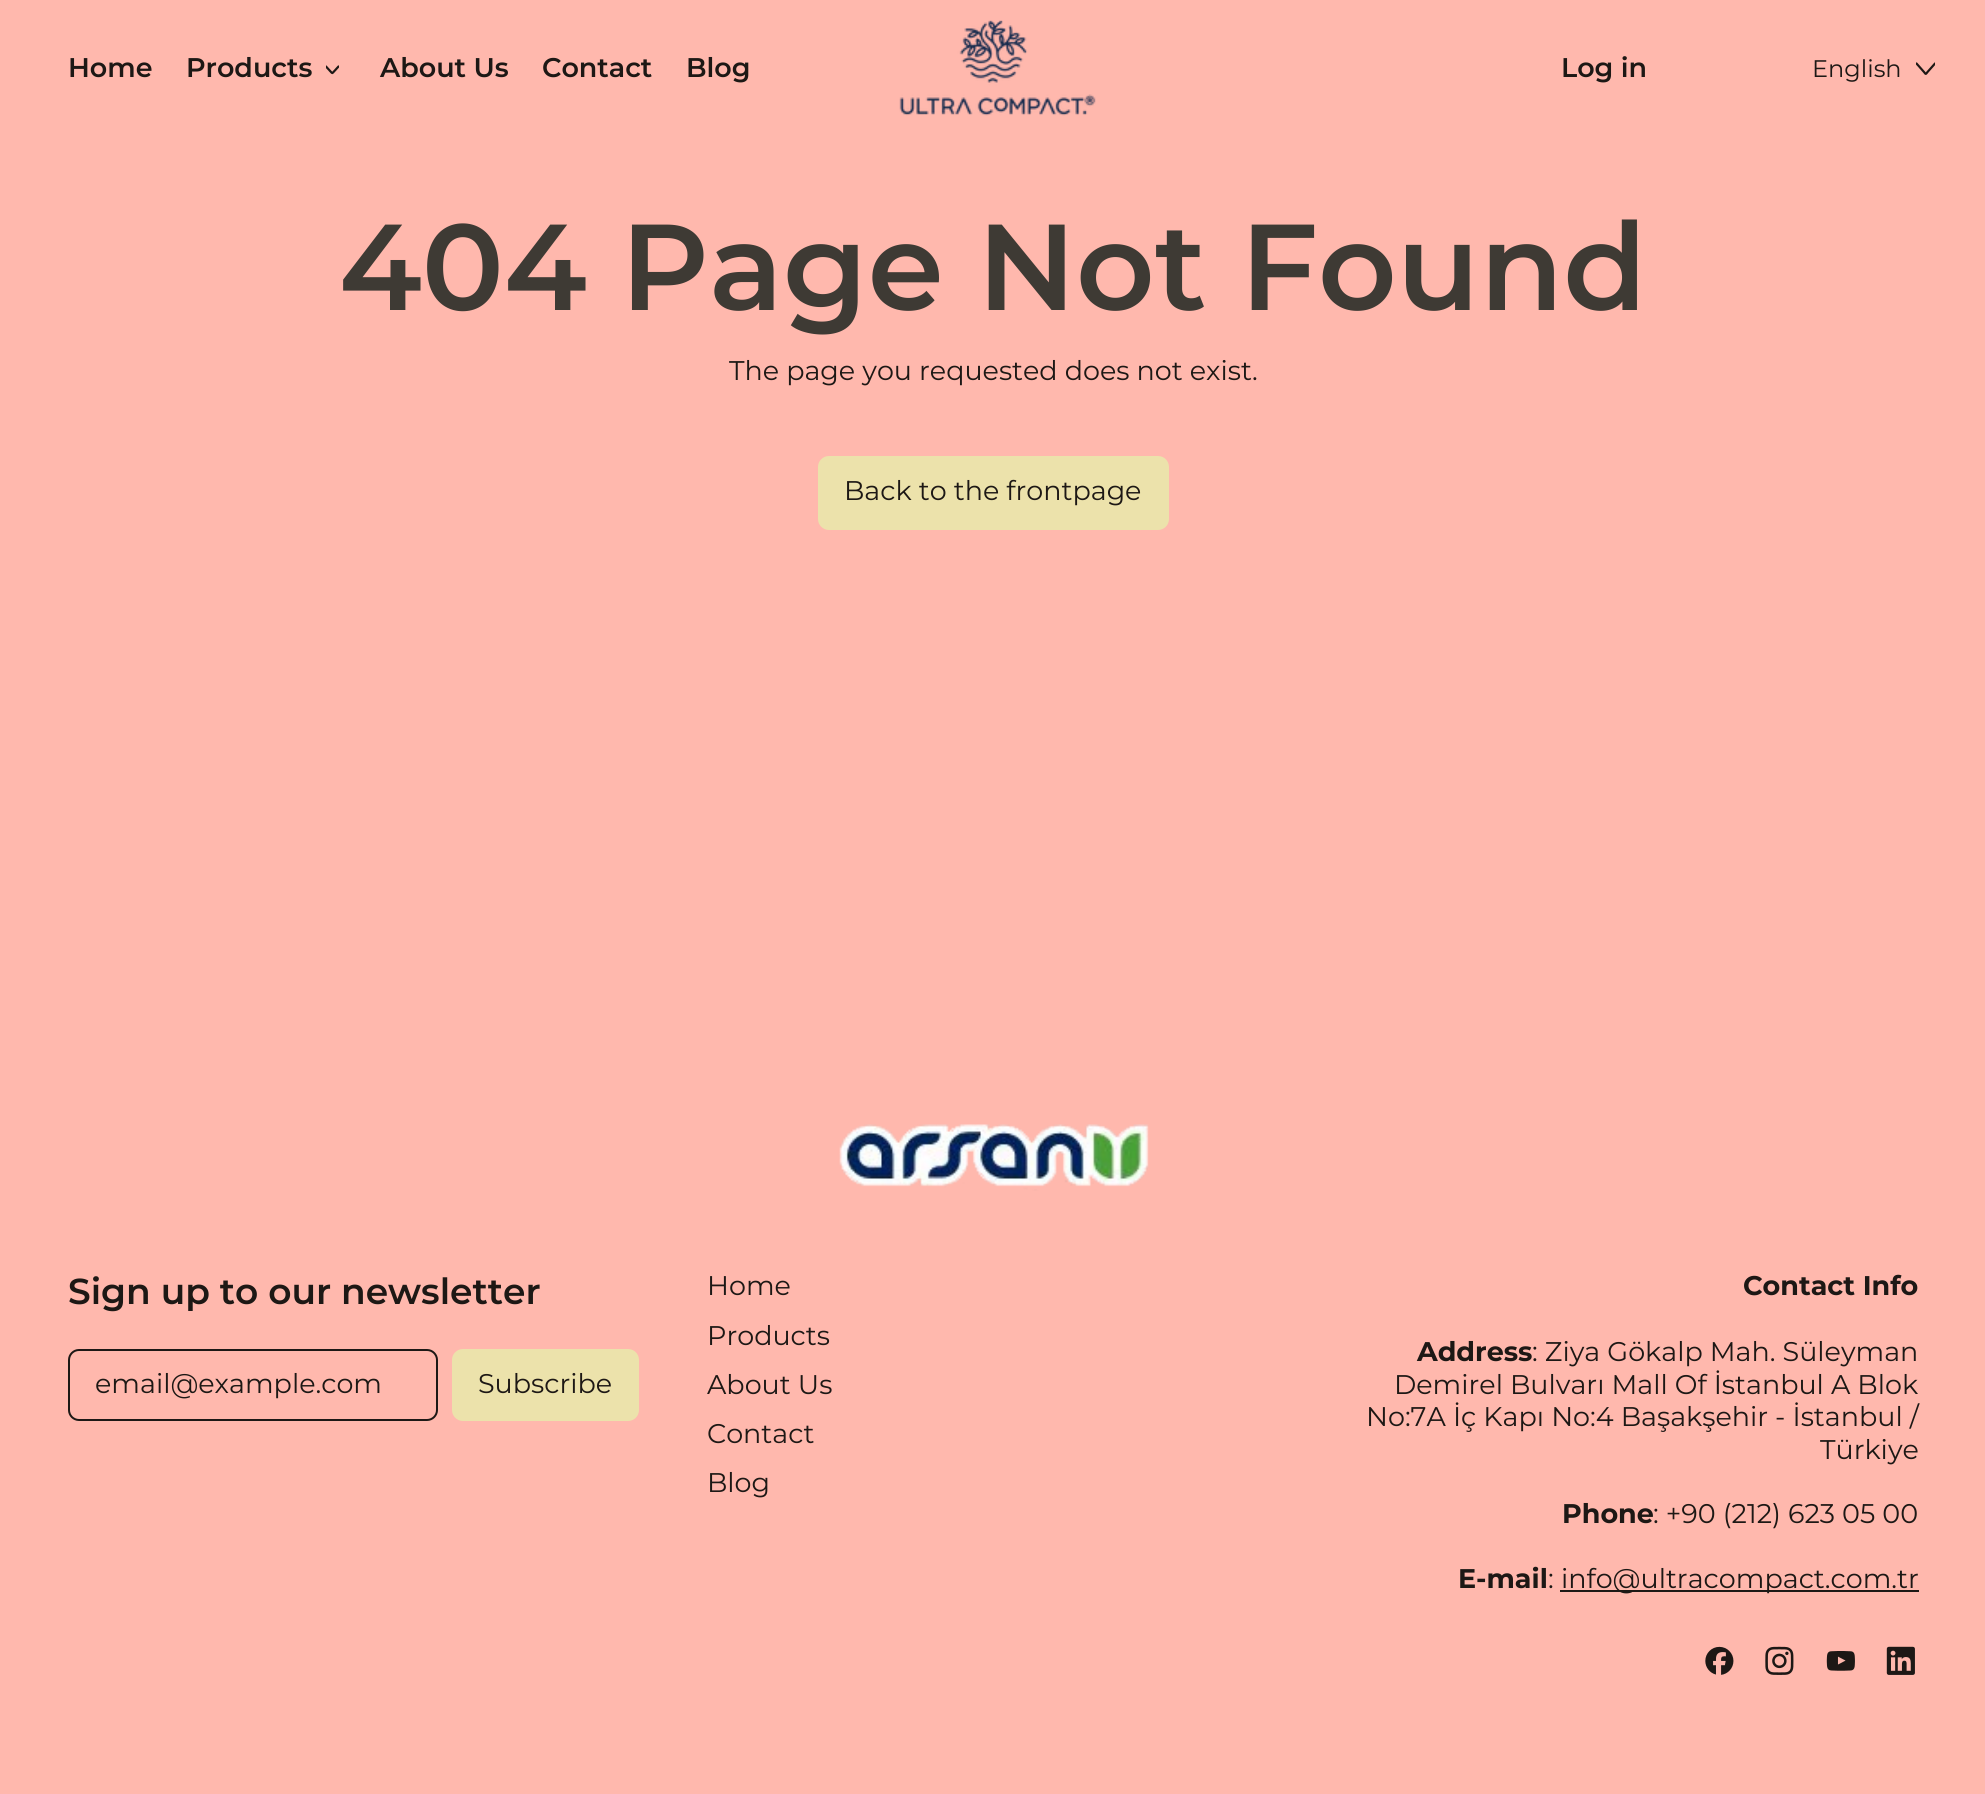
#include <cairo.h>
#include <math.h>
#include <stddef.h>

typedef struct { double x, y; const char *s; } line_t;

static void ink(cairo_t *ctx, unsigned color) {
    cairo_set_source_rgb(ctx, (color >> 16) / 255.0, (color >> 8 & 255) / 255.0, (color & 255) / 255.0);
}

static void round_path(cairo_t *ctx, double x, double y, double w, double h, double r) {
    cairo_new_sub_path(ctx);
    cairo_arc(ctx, x + w - r, y + h - r, r, 0, M_PI / 2);
    cairo_arc(ctx, x + r, y + h - r, r, M_PI / 2, M_PI);
    cairo_arc(ctx, x + r, y + r, r, M_PI, 1.5 * M_PI);
    cairo_arc(ctx, x + w - r, y + r, r, 1.5 * M_PI, 2 * M_PI);
    cairo_close_path(ctx);
}

static void paste(cairo_t *ctx, const char *path, double x, double y, double w, double h) {
    cairo_surface_t *image = cairo_image_surface_create_from_png(path);
    cairo_save(ctx);
    cairo_set_source_surface(ctx, image, x, y);
    cairo_rectangle(ctx, x, y, w, h);
    cairo_fill(ctx);
    cairo_restore(ctx);
    cairo_surface_destroy(image);
}

int main(void) {
    cairo_surface_t *surface = cairo_image_surface_create(CAIRO_FORMAT_RGB24, 1985, 1794);
    cairo_t *ctx = cairo_create(surface);
    cairo_font_options_t *options = cairo_font_options_create();
    cairo_font_options_set_hint_metrics(options, CAIRO_HINT_METRICS_OFF);
    cairo_font_options_set_hint_style(options, CAIRO_HINT_STYLE_NONE);
    cairo_set_font_options(ctx, options);
    cairo_set_miter_limit(ctx, 4);
    ink(ctx, 0xFFB8AD);
    cairo_paint(ctx);
    cairo_select_font_face(ctx, "Montserrat SemiBold", CAIRO_FONT_SLANT_NORMAL, CAIRO_FONT_WEIGHT_NORMAL);
    cairo_set_font_size(ctx, 27);
    ink(ctx, 0x1D1815);
    cairo_move_to(ctx, 68, 77);
    cairo_show_text(ctx, "Home");
    cairo_move_to(ctx, 186, 77);
    cairo_show_text(ctx, "Products");
    cairo_save(ctx);
    cairo_rectangle(ctx, 326, 63, 13, 14);
    cairo_clip(ctx);
    cairo_new_path(ctx);
    cairo_move_to(ctx, 326, 66.5);
    cairo_line_to(ctx, 331, 72);
    cairo_curve_to(ctx, 332.5, 73.5, 332, 73.5, 333.5, 72);
    cairo_line_to(ctx, 338.5, 66.5);
    cairo_set_line_width(ctx, 2.2);
    cairo_set_line_cap(ctx, CAIRO_LINE_CAP_ROUND);
    cairo_set_line_join(ctx, CAIRO_LINE_JOIN_ROUND);
    cairo_stroke(ctx);
    cairo_restore(ctx);
    {
        static const line_t items[] = {
            {380, 77, "About Us"},
            {542, 77, "Contact"},
            {686, 77, "Blog"},
        };
        for (size_t i = 0; i < sizeof items / sizeof *items; i++) {
            cairo_move_to(ctx, items[i].x, items[i].y);
            cairo_show_text(ctx, items[i].s);
        }
    }
    paste(ctx, "media/1.png", 899, 20, 197, 96);
    cairo_move_to(ctx, 1561, 77);
    cairo_show_text(ctx, "Log in");
    cairo_select_font_face(ctx, "Montserrat", CAIRO_FONT_SLANT_NORMAL, CAIRO_FONT_WEIGHT_NORMAL);
    cairo_set_font_size(ctx, 24);
    cairo_move_to(ctx, 1812, 77);
    cairo_show_text(ctx, "English");
    cairo_save(ctx);
    cairo_rectangle(ctx, 1916, 59, 19, 21);
    cairo_clip(ctx);
    cairo_new_path(ctx);
    cairo_move_to(ctx, 1916.5, 63.5);
    cairo_line_to(ctx, 1924, 72);
    cairo_curve_to(ctx, 1926, 74.5, 1925.5, 74.5, 1927.5, 72);
    cairo_line_to(ctx, 1935, 63.5);
    cairo_set_line_width(ctx, 2.2);
    cairo_set_line_cap(ctx, CAIRO_LINE_CAP_ROUND);
    cairo_set_line_join(ctx, CAIRO_LINE_JOIN_ROUND);
    cairo_stroke(ctx);
    cairo_restore(ctx);
    cairo_select_font_face(ctx, "Montserrat SemiBold", CAIRO_FONT_SLANT_NORMAL, CAIRO_FONT_WEIGHT_NORMAL);
    cairo_set_font_size(ctx, 122);
    ink(ctx, 0x3E3A34);
    cairo_move_to(ctx, 339, 310);
    cairo_show_text(ctx, "404 Page Not Found");
    cairo_select_font_face(ctx, "Montserrat", CAIRO_FONT_SLANT_NORMAL, CAIRO_FONT_WEIGHT_NORMAL);
    cairo_set_font_size(ctx, 27);
    ink(ctx, 0x1D1815);
    cairo_move_to(ctx, 729, 380);
    cairo_show_text(ctx, "The page you requested does not exist.");
    ink(ctx, 0xECE2AB);
    round_path(ctx, 818, 456, 351, 74, 11);
    cairo_fill(ctx);
    ink(ctx, 0x1D1815);
    cairo_move_to(ctx, 844, 500);
    cairo_show_text(ctx, "Back to the frontpage");
    paste(ctx, "media/2.png", 839, 1124, 310, 67);
    cairo_select_font_face(ctx, "Montserrat SemiBold", CAIRO_FONT_SLANT_NORMAL, CAIRO_FONT_WEIGHT_NORMAL);
    cairo_set_font_size(ctx, 36);
    cairo_move_to(ctx, 68, 1304);
    cairo_show_text(ctx, "Sign up to our newsletter");
    round_path(ctx, 69, 1350, 368, 70, 10);
    cairo_stroke(ctx);
    cairo_select_font_face(ctx, "Montserrat", CAIRO_FONT_SLANT_NORMAL, CAIRO_FONT_WEIGHT_NORMAL);
    cairo_set_font_size(ctx, 27);
    cairo_move_to(ctx, 95, 1393);
    cairo_show_text(ctx, "email@example.com");
    ink(ctx, 0xECE2AB);
    round_path(ctx, 452, 1349, 187, 72, 11);
    cairo_fill(ctx);
    ink(ctx, 0x1D1815);
    {
        static const line_t items[] = {
            {478, 1393, "Subscribe"},
            {707, 1295, "Home"},
            {707, 1345, "Products"},
            {707, 1394, "About Us"},
            {707, 1443, "Contact"},
            {707, 1492, "Blog"},
        };
        for (size_t i = 0; i < sizeof items / sizeof *items; i++) {
            cairo_move_to(ctx, items[i].x, items[i].y);
            cairo_show_text(ctx, items[i].s);
        }
    }
    cairo_select_font_face(ctx, "Montserrat", CAIRO_FONT_SLANT_NORMAL, CAIRO_FONT_WEIGHT_BOLD);
    cairo_move_to(ctx, 1743, 1295);
    cairo_show_text(ctx, "Contact Info");
    cairo_move_to(ctx, 1417, 1361);
    cairo_show_text(ctx, "Address");
    cairo_select_font_face(ctx, "Montserrat", CAIRO_FONT_SLANT_NORMAL, CAIRO_FONT_WEIGHT_NORMAL);
    {
        static const line_t items[] = {
            {1532, 1361, ": Ziya Gökalp Mah. Süleyman"},
            {1394, 1394, "Demirel Bulvarı Mall Of İstanbul A Blok"},
            {1366, 1426, "No:7A İç Kapı No:4 Başakşehir - İstanbul /"},
            {1820, 1459, "Türkiye"},
        };
        for (size_t i = 0; i < sizeof items / sizeof *items; i++) {
            cairo_move_to(ctx, items[i].x, items[i].y);
            cairo_show_text(ctx, items[i].s);
        }
    }
    cairo_select_font_face(ctx, "Montserrat", CAIRO_FONT_SLANT_NORMAL, CAIRO_FONT_WEIGHT_BOLD);
    cairo_move_to(ctx, 1562, 1523);
    cairo_show_text(ctx, "Phone");
    cairo_select_font_face(ctx, "Montserrat", CAIRO_FONT_SLANT_NORMAL, CAIRO_FONT_WEIGHT_NORMAL);
    cairo_move_to(ctx, 1653, 1523);
    cairo_show_text(ctx, ": +90 (212) 623 05 00");
    cairo_select_font_face(ctx, "Montserrat", CAIRO_FONT_SLANT_NORMAL, CAIRO_FONT_WEIGHT_BOLD);
    cairo_move_to(ctx, 1458, 1588);
    cairo_show_text(ctx, "E-mail");
    cairo_select_font_face(ctx, "Montserrat", CAIRO_FONT_SLANT_NORMAL, CAIRO_FONT_WEIGHT_NORMAL);
    cairo_move_to(ctx, 1548, 1588);
    cairo_show_text(ctx, ":");
    cairo_rectangle(ctx, 1560, 1590, 359, 2);
    cairo_fill(ctx);
    cairo_move_to(ctx, 1561, 1588);
    cairo_show_text(ctx, "info@ultracompact.com.tr");
    paste(ctx, "media/3.png", 1705, 1646, 29, 29);
    paste(ctx, "media/4.png", 1765, 1646, 29, 29);
    paste(ctx, "media/5.png", 1826, 1651, 29, 20);
    paste(ctx, "media/6.png", 1886, 1646, 29, 29);
    cairo_surface_write_to_png(surface, "image.png");
    cairo_font_options_destroy(options);
    cairo_destroy(ctx);
    cairo_surface_destroy(surface);
    return 0;
}
